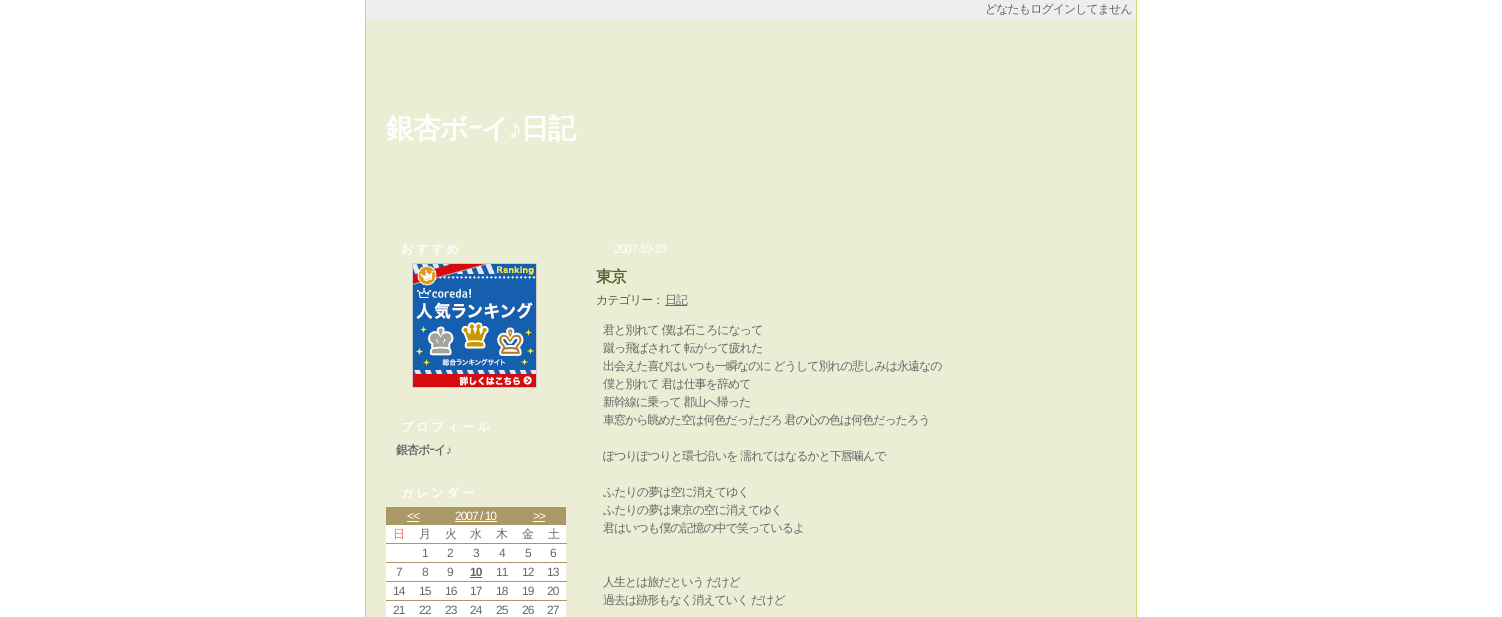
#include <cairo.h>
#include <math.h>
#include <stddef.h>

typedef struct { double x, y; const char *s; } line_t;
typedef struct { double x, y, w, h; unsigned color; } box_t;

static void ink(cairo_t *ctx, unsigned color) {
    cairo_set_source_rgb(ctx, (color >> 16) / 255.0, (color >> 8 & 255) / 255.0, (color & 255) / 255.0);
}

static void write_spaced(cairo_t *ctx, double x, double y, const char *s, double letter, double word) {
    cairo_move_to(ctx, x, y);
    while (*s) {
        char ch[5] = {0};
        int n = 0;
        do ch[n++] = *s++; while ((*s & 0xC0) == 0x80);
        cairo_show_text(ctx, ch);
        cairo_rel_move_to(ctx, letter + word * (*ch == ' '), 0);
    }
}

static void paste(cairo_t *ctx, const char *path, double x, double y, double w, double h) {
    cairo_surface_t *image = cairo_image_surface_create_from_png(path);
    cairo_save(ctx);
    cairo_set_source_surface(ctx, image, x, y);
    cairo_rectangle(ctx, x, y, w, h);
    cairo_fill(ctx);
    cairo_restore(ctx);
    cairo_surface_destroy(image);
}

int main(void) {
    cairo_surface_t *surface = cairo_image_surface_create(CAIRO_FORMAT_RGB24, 1502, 617);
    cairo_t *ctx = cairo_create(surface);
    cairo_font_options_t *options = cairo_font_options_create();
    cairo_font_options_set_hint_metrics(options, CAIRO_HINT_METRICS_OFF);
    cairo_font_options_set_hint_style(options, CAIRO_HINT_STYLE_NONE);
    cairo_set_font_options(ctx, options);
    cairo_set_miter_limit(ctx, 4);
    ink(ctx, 0xFFFFFF);
    cairo_paint(ctx);
    {
        static const box_t items[] = {
            {366, 20, 770, 597, 0xEBEED5},
            {1136, 0, 1, 617, 0xCEDD65},
            {365, 0, 1, 617, 0xCEDD65},
            {366, 0, 770, 20, 0xEEEEEE},
        };
        for (size_t i = 0; i < sizeof items / sizeof *items; i++) {
            ink(ctx, items[i].color);
            cairo_rectangle(ctx, items[i].x, items[i].y, items[i].w, items[i].h);
            cairo_fill(ctx);
        }
    }
    cairo_select_font_face(ctx, "WenQuanYi Zen Hei Medium", CAIRO_FONT_SLANT_NORMAL, CAIRO_FONT_WEIGHT_NORMAL);
    cairo_set_font_size(ctx, 12);
    ink(ctx, 0x666666);
    write_spaced(ctx, 985, 13, "どなたもログインしてません", -1, 0);
    cairo_select_font_face(ctx, "WenQuanYi Zen Hei", CAIRO_FONT_SLANT_NORMAL, CAIRO_FONT_WEIGHT_BOLD);
    cairo_set_font_size(ctx, 28);
    ink(ctx, 0xFFFFFF);
    write_spaced(ctx, 386, 138, "銀杏ボ", -1, 0);
    cairo_select_font_face(ctx, "IPAGothic", CAIRO_FONT_SLANT_NORMAL, CAIRO_FONT_WEIGHT_BOLD);
    write_spaced(ctx, 468, 138, "ｰ", -1, 0);
    cairo_select_font_face(ctx, "WenQuanYi Zen Hei", CAIRO_FONT_SLANT_NORMAL, CAIRO_FONT_WEIGHT_BOLD);
    write_spaced(ctx, 481, 138, "イ", -1, 0);
    cairo_select_font_face(ctx, "Liberation Sans", CAIRO_FONT_SLANT_NORMAL, CAIRO_FONT_WEIGHT_BOLD);
    write_spaced(ctx, 508, 138, "♪", -1, 0);
    cairo_select_font_face(ctx, "WenQuanYi Zen Hei", CAIRO_FONT_SLANT_NORMAL, CAIRO_FONT_WEIGHT_BOLD);
    write_spaced(ctx, 521, 138, "日記", -1, 0);
    cairo_set_font_size(ctx, 12);
    write_spaced(ctx, 401, 253, "おすすめ", 3, 0);
    paste(ctx, "media/1.png", 412, 263, 125, 125);
    write_spaced(ctx, 401, 431, "プロフィール", 3, 0);
    ink(ctx, 0x666666);
    write_spaced(ctx, 396, 454, "銀杏ボ", -1, 0);
    cairo_select_font_face(ctx, "IPAGothic", CAIRO_FONT_SLANT_NORMAL, CAIRO_FONT_WEIGHT_BOLD);
    write_spaced(ctx, 429, 454, "ｰ", -1, 0);
    cairo_select_font_face(ctx, "WenQuanYi Zen Hei", CAIRO_FONT_SLANT_NORMAL, CAIRO_FONT_WEIGHT_BOLD);
    write_spaced(ctx, 434, 454, "イ", -1, 0);
    cairo_select_font_face(ctx, "Liberation Sans", CAIRO_FONT_SLANT_NORMAL, CAIRO_FONT_WEIGHT_BOLD);
    write_spaced(ctx, 446, 454, "♪", -1, 0);
    cairo_select_font_face(ctx, "WenQuanYi Zen Hei", CAIRO_FONT_SLANT_NORMAL, CAIRO_FONT_WEIGHT_BOLD);
    ink(ctx, 0xFFFFFF);
    write_spaced(ctx, 401, 497, "カレンダー", 3, 0);
    ink(ctx, 0xAA9966);
    cairo_rectangle(ctx, 386, 507, 180, 18);
    cairo_fill(ctx);
    cairo_select_font_face(ctx, "Liberation Sans", CAIRO_FONT_SLANT_NORMAL, CAIRO_FONT_WEIGHT_NORMAL);
    ink(ctx, 0xFFFFFF);
    write_spaced(ctx, 407, 520, "<<", -1, 0);
    cairo_rectangle(ctx, 407, 521, 12, 1);
    cairo_fill(ctx);
    write_spaced(ctx, 455, 520, "2007 / 10", -1, 0);
    cairo_rectangle(ctx, 455, 521, 42, 1);
    cairo_fill(ctx);
    write_spaced(ctx, 533, 520, ">>", -1, 0);
    cairo_rectangle(ctx, 533, 521, 12, 1);
    cairo_fill(ctx);
    cairo_rectangle(ctx, 386, 525, 180, 92);
    cairo_fill(ctx);
    cairo_select_font_face(ctx, "WenQuanYi Zen Hei Medium", CAIRO_FONT_SLANT_NORMAL, CAIRO_FONT_WEIGHT_NORMAL);
    ink(ctx, 0xFF6666);
    write_spaced(ctx, 393, 538, "日", -1, 0);
    ink(ctx, 0x666666);
    {
        static const line_t items[] = {
            {419, 538, "月"},
            {445, 538, "火"},
            {470, 538, "水"},
            {496, 538, "木"},
            {522, 538, "金"},
        };
        for (size_t i = 0; i < sizeof items / sizeof *items; i++) {
            write_spaced(ctx, items[i].x, items[i].y, items[i].s, -1, 0);
        }
    }
    ink(ctx, 0xAA9966);
    cairo_rectangle(ctx, 386, 543, 181, 1);
    cairo_fill(ctx);
    ink(ctx, 0x666666);
    write_spaced(ctx, 548, 538, "土", -1, 0);
    cairo_select_font_face(ctx, "Liberation Sans", CAIRO_FONT_SLANT_NORMAL, CAIRO_FONT_WEIGHT_NORMAL);
    {
        static const line_t items[] = {
            {422, 557, "1"},
            {447, 557, "2"},
            {473, 557, "3"},
            {499, 557, "4"},
            {525, 557, "5"},
        };
        for (size_t i = 0; i < sizeof items / sizeof *items; i++) {
            write_spaced(ctx, items[i].x, items[i].y, items[i].s, -1, 0);
        }
    }
    ink(ctx, 0xAA9966);
    cairo_rectangle(ctx, 386, 562, 181, 1);
    cairo_fill(ctx);
    ink(ctx, 0x666666);
    {
        static const line_t items[] = {
            {550, 557, "6"},
            {396, 576, "7"},
            {422, 576, "8"},
            {447, 576, "9"},
        };
        for (size_t i = 0; i < sizeof items / sizeof *items; i++) {
            write_spaced(ctx, items[i].x, items[i].y, items[i].s, -1, 0);
        }
    }
    cairo_select_font_face(ctx, "Liberation Sans", CAIRO_FONT_SLANT_NORMAL, CAIRO_FONT_WEIGHT_BOLD);
    write_spaced(ctx, 470, 576, "10", -1, 0);
    cairo_rectangle(ctx, 470, 577, 12, 1);
    cairo_fill(ctx);
    cairo_select_font_face(ctx, "Liberation Sans", CAIRO_FONT_SLANT_NORMAL, CAIRO_FONT_WEIGHT_NORMAL);
    write_spaced(ctx, 496, 576, "11", -1, 0);
    write_spaced(ctx, 522, 576, "12", -1, 0);
    ink(ctx, 0xAA9966);
    cairo_rectangle(ctx, 386, 581, 181, 1);
    cairo_fill(ctx);
    ink(ctx, 0x666666);
    {
        static const line_t items[] = {
            {547, 576, "13"},
            {393, 595, "14"},
            {419, 595, "15"},
            {445, 595, "16"},
            {470, 595, "17"},
            {496, 595, "18"},
            {522, 595, "19"},
        };
        for (size_t i = 0; i < sizeof items / sizeof *items; i++) {
            write_spaced(ctx, items[i].x, items[i].y, items[i].s, -1, 0);
        }
    }
    ink(ctx, 0xAA9966);
    cairo_rectangle(ctx, 386, 600, 181, 1);
    cairo_fill(ctx);
    ink(ctx, 0x666666);
    {
        static const line_t items[] = {
            {547, 595, "20"},
            {393, 614, "21"},
            {419, 614, "22"},
            {445, 614, "23"},
            {470, 614, "24"},
            {496, 614, "25"},
            {522, 614, "26"},
            {547, 614, "27"},
        };
        for (size_t i = 0; i < sizeof items / sizeof *items; i++) {
            write_spaced(ctx, items[i].x, items[i].y, items[i].s, -1, 0);
        }
    }
    ink(ctx, 0xFFFFFF);
    write_spaced(ctx, 614, 253, "2007-10-10", -1, 0);
    cairo_select_font_face(ctx, "WenQuanYi Zen Hei", CAIRO_FONT_SLANT_NORMAL, CAIRO_FONT_WEIGHT_BOLD);
    cairo_set_font_size(ctx, 16);
    ink(ctx, 0x556633);
    write_spaced(ctx, 596, 282, "東京", -1, 0);
    cairo_select_font_face(ctx, "WenQuanYi Zen Hei Medium", CAIRO_FONT_SLANT_NORMAL, CAIRO_FONT_WEIGHT_NORMAL);
    cairo_set_font_size(ctx, 12);
    write_spaced(ctx, 596, 304, "カテゴリー：", -1, 0);
    ink(ctx, 0x666666);
    cairo_rectangle(ctx, 665, 305, 22, 1);
    cairo_fill(ctx);
    {
        static const line_t items[] = {
            {665, 304, "日記"},
            {603, 334, "君と別れて 僕は石ころになって"},
            {603, 352, "蹴っ飛ばされて 転がって疲れた"},
            {603, 370, "出会えた喜びはいつも一瞬なのに どうして別れの悲しみは永遠なの"},
            {603, 388, "僕と別れて 君は仕事を辞めて"},
            {603, 406, "新幹線に乗って 郡山へ帰った"},
            {603, 424, "車窓から眺めた空は何色だっただろ 君の心の色は何色だったろう"},
            {603, 460, "ぽつりぽつりと環七沿いを 濡れてはなるかと下唇噛んで"},
            {603, 496, "ふたりの夢は空に消えてゆく"},
            {603, 514, "ふたりの夢は東京の空に消えてゆく"},
            {603, 532, "君はいつも僕の記憶の中で笑っているよ"},
            {603, 586, "人生とは旅だという だけど"},
            {603, 604, "過去は跡形もなく消えていく だけど"},
        };
        for (size_t i = 0; i < sizeof items / sizeof *items; i++) {
            write_spaced(ctx, items[i].x, items[i].y, items[i].s, -1, 0);
        }
    }
    cairo_surface_write_to_png(surface, "image.png");
    cairo_font_options_destroy(options);
    cairo_destroy(ctx);
    cairo_surface_destroy(surface);
    return 0;
}
